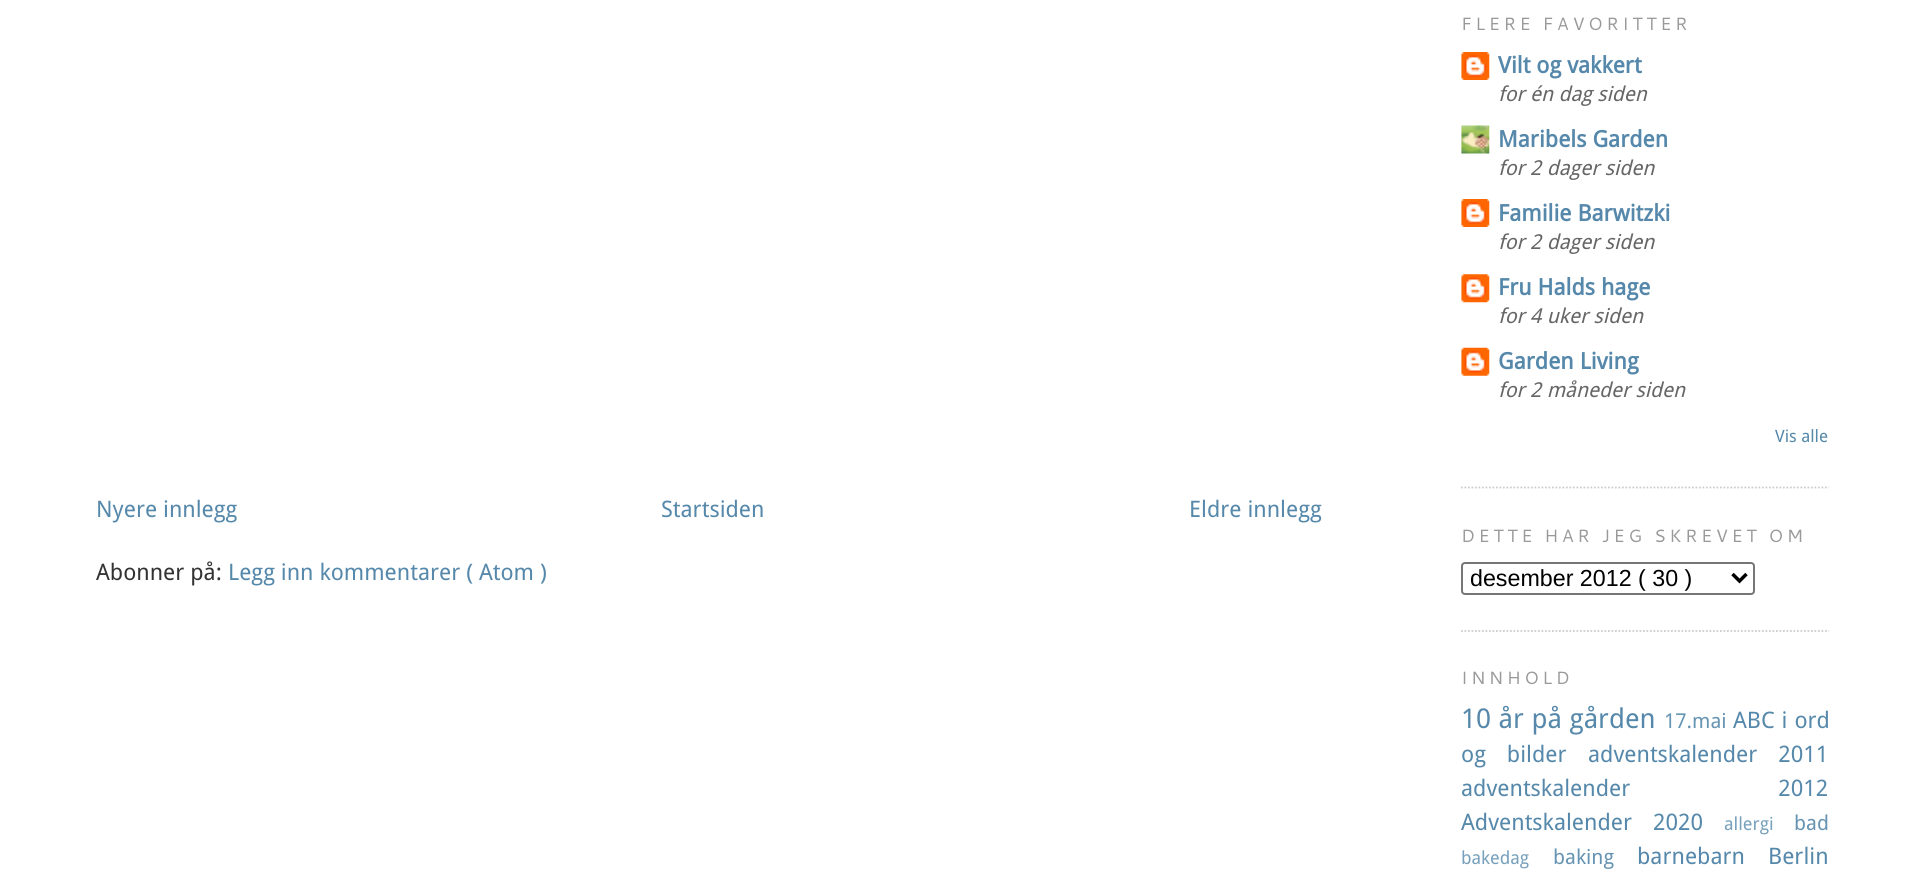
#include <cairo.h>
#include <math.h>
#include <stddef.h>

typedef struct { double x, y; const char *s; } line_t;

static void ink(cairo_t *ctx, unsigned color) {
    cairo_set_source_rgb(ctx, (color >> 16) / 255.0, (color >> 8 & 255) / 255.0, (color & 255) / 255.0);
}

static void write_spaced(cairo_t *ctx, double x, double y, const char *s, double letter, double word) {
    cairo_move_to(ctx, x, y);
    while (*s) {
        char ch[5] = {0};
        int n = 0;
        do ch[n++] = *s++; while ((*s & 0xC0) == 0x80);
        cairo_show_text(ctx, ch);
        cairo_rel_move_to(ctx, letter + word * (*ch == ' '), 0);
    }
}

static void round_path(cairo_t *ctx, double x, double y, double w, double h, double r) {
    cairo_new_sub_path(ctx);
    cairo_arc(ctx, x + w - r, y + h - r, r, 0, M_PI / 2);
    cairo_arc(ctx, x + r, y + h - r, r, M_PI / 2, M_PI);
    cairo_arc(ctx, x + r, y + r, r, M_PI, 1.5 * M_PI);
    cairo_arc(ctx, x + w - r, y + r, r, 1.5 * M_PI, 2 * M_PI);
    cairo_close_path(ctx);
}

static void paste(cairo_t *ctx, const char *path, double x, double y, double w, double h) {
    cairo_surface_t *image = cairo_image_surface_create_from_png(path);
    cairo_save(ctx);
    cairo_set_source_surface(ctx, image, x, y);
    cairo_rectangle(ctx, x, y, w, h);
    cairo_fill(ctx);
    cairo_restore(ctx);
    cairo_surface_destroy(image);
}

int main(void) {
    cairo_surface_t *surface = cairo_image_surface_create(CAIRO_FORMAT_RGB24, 1924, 873);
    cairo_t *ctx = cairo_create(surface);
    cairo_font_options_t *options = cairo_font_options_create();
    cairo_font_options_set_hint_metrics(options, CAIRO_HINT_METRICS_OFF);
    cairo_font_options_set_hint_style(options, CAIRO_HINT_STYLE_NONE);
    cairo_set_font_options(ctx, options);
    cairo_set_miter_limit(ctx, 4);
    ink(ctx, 0xFFFFFF);
    cairo_paint(ctx);
    cairo_select_font_face(ctx, "Droid Sans", CAIRO_FONT_SLANT_NORMAL, CAIRO_FONT_WEIGHT_NORMAL);
    cairo_set_font_size(ctx, 22.75);
    ink(ctx, 0x5588AA);
    {
        static const line_t items[] = {
            {96, 517, "Nyere innlegg"},
            {661, 517, "Startsiden"},
            {1189, 517, "Eldre innlegg"},
        };
        for (size_t i = 0; i < sizeof items / sizeof *items; i++) {
            cairo_move_to(ctx, items[i].x, items[i].y);
            cairo_show_text(ctx, items[i].s);
        }
    }
    ink(ctx, 0x333333);
    cairo_move_to(ctx, 96, 580);
    cairo_show_text(ctx, "Abonner på:");
    ink(ctx, 0x5588AA);
    cairo_move_to(ctx, 228, 580);
    cairo_show_text(ctx, "Legg inn kommentarer ( Atom )");
    cairo_new_path(ctx);
    cairo_move_to(ctx, 1461, 487.5);
    cairo_line_to(ctx, 1829, 487.5);
    ink(ctx, 0xCCCCCC);
    cairo_set_line_width(ctx, 1.8);
    cairo_set_dash(ctx, (double[]){1.75, 1.75}, 2, 0);
    cairo_stroke(ctx);
    cairo_select_font_face(ctx, "Cantarell", CAIRO_FONT_SLANT_NORMAL, CAIRO_FONT_WEIGHT_NORMAL);
    cairo_set_font_size(ctx, 17.75);
    ink(ctx, 0x999999);
    write_spaced(ctx, 1461, 30, "FLERE FAVORITTER", 3.55, 0);
    paste(ctx, "media/1.png", 1461, 52, 29, 28);
    cairo_select_font_face(ctx, "Droid Sans", CAIRO_FONT_SLANT_NORMAL, CAIRO_FONT_WEIGHT_BOLD);
    cairo_set_font_size(ctx, 22.75);
    ink(ctx, 0x5588AA);
    cairo_move_to(ctx, 1498, 73);
    cairo_show_text(ctx, "Vilt og vakkert");
    cairo_select_font_face(ctx, "Droid Sans", CAIRO_FONT_SLANT_ITALIC, CAIRO_FONT_WEIGHT_NORMAL);
    cairo_set_font_size(ctx, 20.5);
    ink(ctx, 0x666666);
    cairo_move_to(ctx, 1498, 101);
    cairo_show_text(ctx, "for én dag siden");
    paste(ctx, "media/2.png", 1461, 125, 29, 29);
    cairo_select_font_face(ctx, "Droid Sans", CAIRO_FONT_SLANT_NORMAL, CAIRO_FONT_WEIGHT_BOLD);
    cairo_set_font_size(ctx, 22.75);
    ink(ctx, 0x5588AA);
    cairo_move_to(ctx, 1498, 147);
    cairo_show_text(ctx, "Maribels Garden");
    cairo_select_font_face(ctx, "Droid Sans", CAIRO_FONT_SLANT_ITALIC, CAIRO_FONT_WEIGHT_NORMAL);
    cairo_set_font_size(ctx, 20.5);
    ink(ctx, 0x666666);
    cairo_move_to(ctx, 1498, 175);
    cairo_show_text(ctx, "for 2 dager siden");
    paste(ctx, "media/1.png", 1461, 199, 29, 28);
    cairo_select_font_face(ctx, "Droid Sans", CAIRO_FONT_SLANT_NORMAL, CAIRO_FONT_WEIGHT_BOLD);
    cairo_set_font_size(ctx, 22.75);
    ink(ctx, 0x5588AA);
    cairo_move_to(ctx, 1498, 221);
    cairo_show_text(ctx, "Familie Barwitzki");
    cairo_select_font_face(ctx, "Droid Sans", CAIRO_FONT_SLANT_ITALIC, CAIRO_FONT_WEIGHT_NORMAL);
    cairo_set_font_size(ctx, 20.5);
    ink(ctx, 0x666666);
    cairo_move_to(ctx, 1498, 249);
    cairo_show_text(ctx, "for 2 dager siden");
    paste(ctx, "media/3.png", 1461, 274, 29, 29);
    cairo_select_font_face(ctx, "Droid Sans", CAIRO_FONT_SLANT_NORMAL, CAIRO_FONT_WEIGHT_BOLD);
    cairo_set_font_size(ctx, 22.75);
    ink(ctx, 0x5588AA);
    cairo_move_to(ctx, 1498, 295);
    cairo_show_text(ctx, "Fru Halds hage");
    cairo_select_font_face(ctx, "Droid Sans", CAIRO_FONT_SLANT_ITALIC, CAIRO_FONT_WEIGHT_NORMAL);
    cairo_set_font_size(ctx, 20.5);
    ink(ctx, 0x666666);
    cairo_move_to(ctx, 1498, 323);
    cairo_show_text(ctx, "for 4 uker siden");
    paste(ctx, "media/4.png", 1461, 347, 29, 29);
    cairo_select_font_face(ctx, "Droid Sans", CAIRO_FONT_SLANT_NORMAL, CAIRO_FONT_WEIGHT_BOLD);
    cairo_set_font_size(ctx, 22.75);
    ink(ctx, 0x5588AA);
    cairo_move_to(ctx, 1498, 369);
    cairo_show_text(ctx, "Garden Living");
    cairo_select_font_face(ctx, "Droid Sans", CAIRO_FONT_SLANT_ITALIC, CAIRO_FONT_WEIGHT_NORMAL);
    cairo_set_font_size(ctx, 20.5);
    ink(ctx, 0x666666);
    cairo_move_to(ctx, 1498, 397);
    cairo_show_text(ctx, "for 2 måneder siden");
    cairo_select_font_face(ctx, "Droid Sans", CAIRO_FONT_SLANT_NORMAL, CAIRO_FONT_WEIGHT_NORMAL);
    cairo_set_font_size(ctx, 17);
    ink(ctx, 0x5588AA);
    cairo_move_to(ctx, 1775, 442);
    cairo_show_text(ctx, "Vis alle");
    cairo_new_path(ctx);
    cairo_move_to(ctx, 1461, 631);
    cairo_line_to(ctx, 1829, 631);
    ink(ctx, 0xCCCCCC);
    cairo_stroke(ctx);
    cairo_select_font_face(ctx, "Cantarell", CAIRO_FONT_SLANT_NORMAL, CAIRO_FONT_WEIGHT_NORMAL);
    cairo_set_font_size(ctx, 17.75);
    ink(ctx, 0x999999);
    write_spaced(ctx, 1461, 542, "DETTE HAR JEG SKREVET OM", 3.55, 0);
    round_path(ctx, 1462, 563, 292, 31, 3);
    ink(ctx, 0x767676);
    cairo_set_line_width(ctx, 2);
    cairo_set_dash(ctx, NULL, 0, 0);
    cairo_stroke(ctx);
    cairo_new_path(ctx);
    cairo_move_to(ctx, 1732.5, 574);
    cairo_line_to(ctx, 1739.5, 581);
    cairo_line_to(ctx, 1746.5, 574);
    ink(ctx, 0x000000);
    cairo_set_line_width(ctx, 3.5);
    cairo_stroke(ctx);
    cairo_select_font_face(ctx, "Liberation Sans", CAIRO_FONT_SLANT_NORMAL, CAIRO_FONT_WEIGHT_NORMAL);
    cairo_set_font_size(ctx, 23.25);
    cairo_move_to(ctx, 1470, 586);
    cairo_show_text(ctx, "desember 2012 ( 30 )");
    cairo_select_font_face(ctx, "Cantarell", CAIRO_FONT_SLANT_NORMAL, CAIRO_FONT_WEIGHT_NORMAL);
    cairo_set_font_size(ctx, 17.75);
    ink(ctx, 0x999999);
    write_spaced(ctx, 1461, 684, "INNHOLD", 3.55, 0);
    cairo_select_font_face(ctx, "Droid Sans", CAIRO_FONT_SLANT_NORMAL, CAIRO_FONT_WEIGHT_NORMAL);
    cairo_set_font_size(ctx, 27.25);
    ink(ctx, 0x5588AA);
    write_spaced(ctx, 1461, 728, "10 år på gården", 0, 0.5);
    cairo_set_font_size(ctx, 20.5);
    ink(ctx, 0x6694B3);
    cairo_move_to(ctx, 1664, 728);
    cairo_show_text(ctx, "17.mai");
    cairo_set_font_size(ctx, 22.75);
    ink(ctx, 0x5588AA);
    write_spaced(ctx, 1733, 728, "ABC i ord", 0, 1);
    write_spaced(ctx, 1461, 762, "og bilder", 0, 15);
    write_spaced(ctx, 1588, 762, "adventskalender 2011", 0, 15);
    write_spaced(ctx, 1461, 796, "adventskalender 2012", 0, 142);
    write_spaced(ctx, 1461, 830, "Adventskalender 2020", 0, 15);
    cairo_set_font_size(ctx, 18);
    ink(ctx, 0x77A0BB);
    cairo_move_to(ctx, 1724, 830);
    cairo_show_text(ctx, "allergi");
    cairo_set_font_size(ctx, 20.5);
    ink(ctx, 0x6694B3);
    cairo_move_to(ctx, 1794, 830);
    cairo_show_text(ctx, "bad");
    cairo_set_font_size(ctx, 18);
    ink(ctx, 0x77A0BB);
    cairo_move_to(ctx, 1461, 864);
    cairo_show_text(ctx, "bakedag");
    cairo_set_font_size(ctx, 20.5);
    ink(ctx, 0x6694B3);
    cairo_move_to(ctx, 1553, 864);
    cairo_show_text(ctx, "baking");
    cairo_set_font_size(ctx, 22.75);
    ink(ctx, 0x5588AA);
    cairo_move_to(ctx, 1637, 864);
    cairo_show_text(ctx, "barnebarn");
    cairo_move_to(ctx, 1768, 864);
    cairo_show_text(ctx, "Berlin");
    cairo_surface_write_to_png(surface, "image.png");
    cairo_font_options_destroy(options);
    cairo_destroy(ctx);
    cairo_surface_destroy(surface);
    return 0;
}
